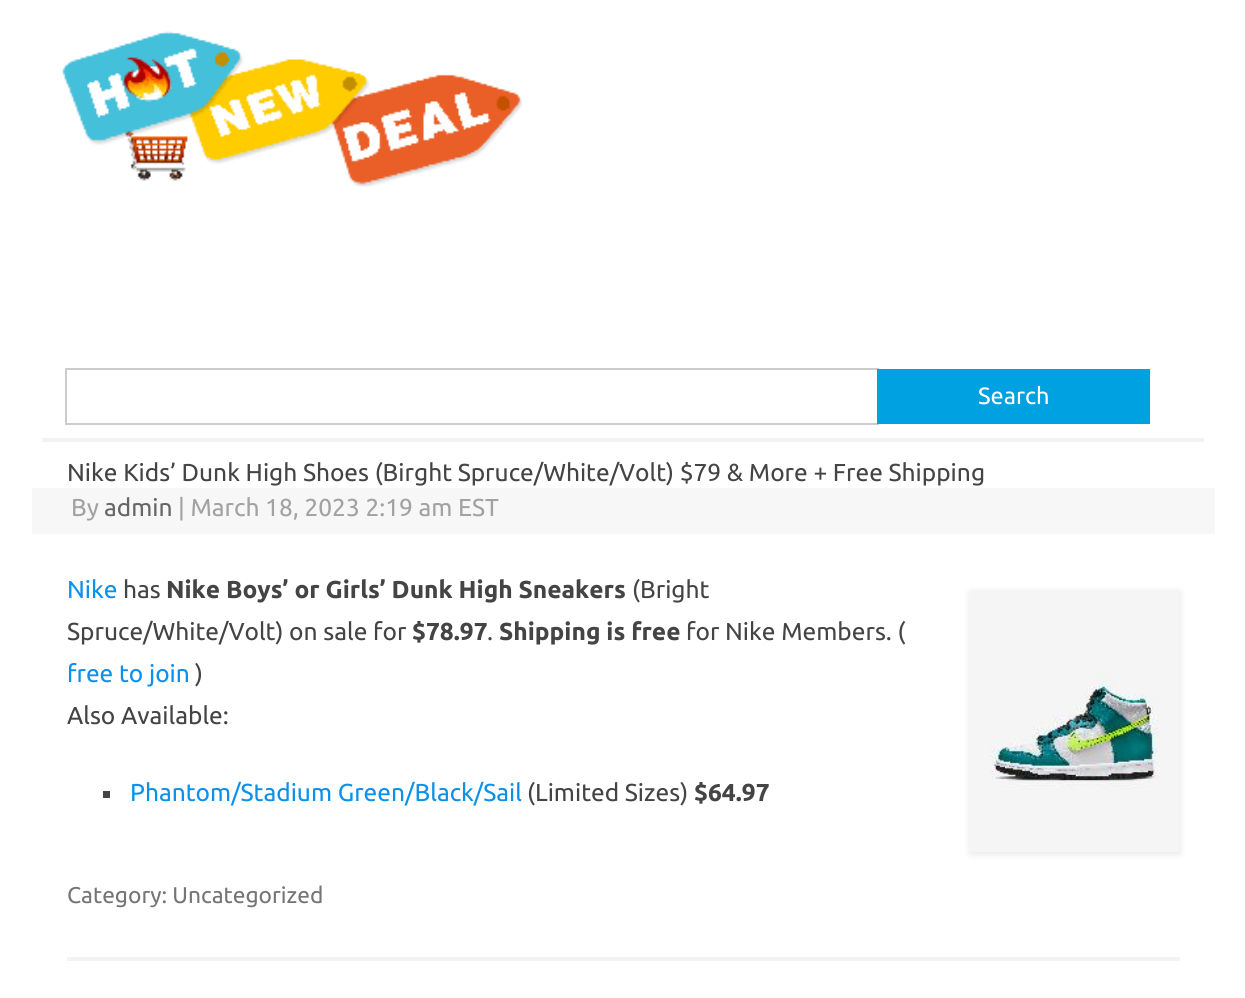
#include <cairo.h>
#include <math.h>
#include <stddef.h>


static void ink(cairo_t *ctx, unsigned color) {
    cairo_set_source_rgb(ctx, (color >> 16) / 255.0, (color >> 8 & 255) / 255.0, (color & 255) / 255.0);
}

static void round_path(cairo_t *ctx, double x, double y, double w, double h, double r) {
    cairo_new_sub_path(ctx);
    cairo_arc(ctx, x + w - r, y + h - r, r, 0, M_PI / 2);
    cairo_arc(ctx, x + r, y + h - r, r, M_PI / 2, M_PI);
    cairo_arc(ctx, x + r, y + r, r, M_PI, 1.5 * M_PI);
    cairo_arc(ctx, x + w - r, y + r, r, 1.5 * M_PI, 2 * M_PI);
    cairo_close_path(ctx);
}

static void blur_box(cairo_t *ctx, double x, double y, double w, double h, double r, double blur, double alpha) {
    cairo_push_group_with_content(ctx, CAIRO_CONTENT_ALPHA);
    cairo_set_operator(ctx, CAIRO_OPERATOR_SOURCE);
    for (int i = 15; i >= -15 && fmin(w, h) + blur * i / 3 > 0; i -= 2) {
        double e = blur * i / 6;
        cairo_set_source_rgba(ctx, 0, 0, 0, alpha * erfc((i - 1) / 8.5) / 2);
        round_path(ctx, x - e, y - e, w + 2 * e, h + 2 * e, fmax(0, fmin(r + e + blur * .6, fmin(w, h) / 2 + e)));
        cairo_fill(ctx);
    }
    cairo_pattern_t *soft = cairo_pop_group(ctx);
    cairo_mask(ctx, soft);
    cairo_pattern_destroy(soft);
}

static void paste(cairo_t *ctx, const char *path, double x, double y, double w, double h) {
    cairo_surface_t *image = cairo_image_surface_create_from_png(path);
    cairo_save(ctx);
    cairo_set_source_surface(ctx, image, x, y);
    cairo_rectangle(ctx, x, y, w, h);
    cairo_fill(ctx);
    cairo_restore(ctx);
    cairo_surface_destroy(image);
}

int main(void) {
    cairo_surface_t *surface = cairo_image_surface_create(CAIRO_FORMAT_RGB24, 1245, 998);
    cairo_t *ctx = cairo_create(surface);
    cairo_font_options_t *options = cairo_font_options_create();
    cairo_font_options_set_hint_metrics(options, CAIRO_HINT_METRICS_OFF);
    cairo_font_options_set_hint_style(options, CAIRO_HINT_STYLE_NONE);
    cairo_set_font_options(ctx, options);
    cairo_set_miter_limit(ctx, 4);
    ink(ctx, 0xFFFFFF);
    cairo_paint(ctx);
    paste(ctx, "media/1.png", 62, 31, 461, 156);
    ink(ctx, 0xF3F3F3);
    cairo_rectangle(ctx, 42, 438, 1162, 4);
    cairo_fill(ctx);
    cairo_rectangle(ctx, 66, 369, 812, 55);
    ink(ctx, 0xCCCCCC);
    cairo_stroke(ctx);
    ink(ctx, 0x00A1E0);
    cairo_rectangle(ctx, 877, 369, 273, 55);
    cairo_fill(ctx);
    cairo_select_font_face(ctx, "Ubuntu", CAIRO_FONT_SLANT_NORMAL, CAIRO_FONT_WEIGHT_NORMAL);
    cairo_set_font_size(ctx, 23.5);
    ink(ctx, 0xFFFFFF);
    cairo_move_to(ctx, 978, 404);
    cairo_show_text(ctx, "Search");
    ink(ctx, 0xF3F3F3);
    cairo_rectangle(ctx, 67, 957, 1113, 4);
    cairo_fill(ctx);
    cairo_set_font_size(ctx, 24.5);
    ink(ctx, 0x444444);
    cairo_move_to(ctx, 67, 481);
    cairo_show_text(ctx, "Nike Kids’ Dunk High Shoes (Birght Spruce/White/Volt) $79 & More + Free Shipping");
    ink(ctx, 0xF7F7F7);
    cairo_rectangle(ctx, 32, 488, 1183, 46);
    cairo_fill(ctx);
    ink(ctx, 0xA2A2A2);
    cairo_move_to(ctx, 71, 516);
    cairo_show_text(ctx, "By");
    ink(ctx, 0x666666);
    cairo_move_to(ctx, 104, 516);
    cairo_show_text(ctx, "admin");
    ink(ctx, 0xA2A2A2);
    cairo_move_to(ctx, 178, 516);
    cairo_show_text(ctx, "| March 18, 2023 2:19 am EST");
    ink(ctx, 0x0B91EA);
    cairo_move_to(ctx, 67, 598);
    cairo_show_text(ctx, "Nike");
    ink(ctx, 0x444444);
    cairo_move_to(ctx, 123, 598);
    cairo_show_text(ctx, "has");
    cairo_select_font_face(ctx, "Ubuntu", CAIRO_FONT_SLANT_NORMAL, CAIRO_FONT_WEIGHT_BOLD);
    cairo_move_to(ctx, 166, 598);
    cairo_show_text(ctx, "Nike Boys’ or Girls’ Dunk High Sneakers");
    cairo_select_font_face(ctx, "Ubuntu", CAIRO_FONT_SLANT_NORMAL, CAIRO_FONT_WEIGHT_NORMAL);
    cairo_move_to(ctx, 632, 598);
    cairo_show_text(ctx, "(Bright");
    ink(ctx, 0x000000);
    blur_box(ctx, 970, 592, 210, 262, 0, 3.5, 0.1);
    paste(ctx, "media/2.png", 969, 590, 210, 262);
    ink(ctx, 0x444444);
    cairo_move_to(ctx, 67, 640);
    cairo_show_text(ctx, "Spruce/White/Volt) on sale for");
    cairo_select_font_face(ctx, "Ubuntu", CAIRO_FONT_SLANT_NORMAL, CAIRO_FONT_WEIGHT_BOLD);
    cairo_move_to(ctx, 412, 640);
    cairo_show_text(ctx, "$78.97");
    cairo_select_font_face(ctx, "Ubuntu", CAIRO_FONT_SLANT_NORMAL, CAIRO_FONT_WEIGHT_NORMAL);
    cairo_move_to(ctx, 487, 640);
    cairo_show_text(ctx, ".");
    cairo_select_font_face(ctx, "Ubuntu", CAIRO_FONT_SLANT_NORMAL, CAIRO_FONT_WEIGHT_BOLD);
    cairo_move_to(ctx, 499, 640);
    cairo_show_text(ctx, "Shipping is free");
    cairo_select_font_face(ctx, "Ubuntu", CAIRO_FONT_SLANT_NORMAL, CAIRO_FONT_WEIGHT_NORMAL);
    cairo_move_to(ctx, 686, 640);
    cairo_show_text(ctx, "for Nike Members. (");
    ink(ctx, 0x0B91EA);
    cairo_move_to(ctx, 67, 682);
    cairo_show_text(ctx, "free to join");
    ink(ctx, 0x444444);
    cairo_move_to(ctx, 195, 682);
    cairo_show_text(ctx, ")");
    cairo_move_to(ctx, 67, 724);
    cairo_show_text(ctx, "Also Available:");
    cairo_rectangle(ctx, 103, 791, 7, 7);
    cairo_fill(ctx);
    ink(ctx, 0x0B91EA);
    cairo_move_to(ctx, 130, 801);
    cairo_show_text(ctx, "Phantom/Stadium Green/Black/Sail");
    ink(ctx, 0x444444);
    cairo_move_to(ctx, 527, 801);
    cairo_show_text(ctx, "(Limited Sizes)");
    cairo_select_font_face(ctx, "Ubuntu", CAIRO_FONT_SLANT_NORMAL, CAIRO_FONT_WEIGHT_BOLD);
    cairo_move_to(ctx, 694, 801);
    cairo_show_text(ctx, "$64.97");
    cairo_select_font_face(ctx, "Ubuntu", CAIRO_FONT_SLANT_NORMAL, CAIRO_FONT_WEIGHT_NORMAL);
    cairo_set_font_size(ctx, 22.75);
    ink(ctx, 0x757575);
    cairo_move_to(ctx, 67, 903);
    cairo_show_text(ctx, "Category: Uncategorized");
    cairo_surface_write_to_png(surface, "image.png");
    cairo_font_options_destroy(options);
    cairo_destroy(ctx);
    cairo_surface_destroy(surface);
    return 0;
}
